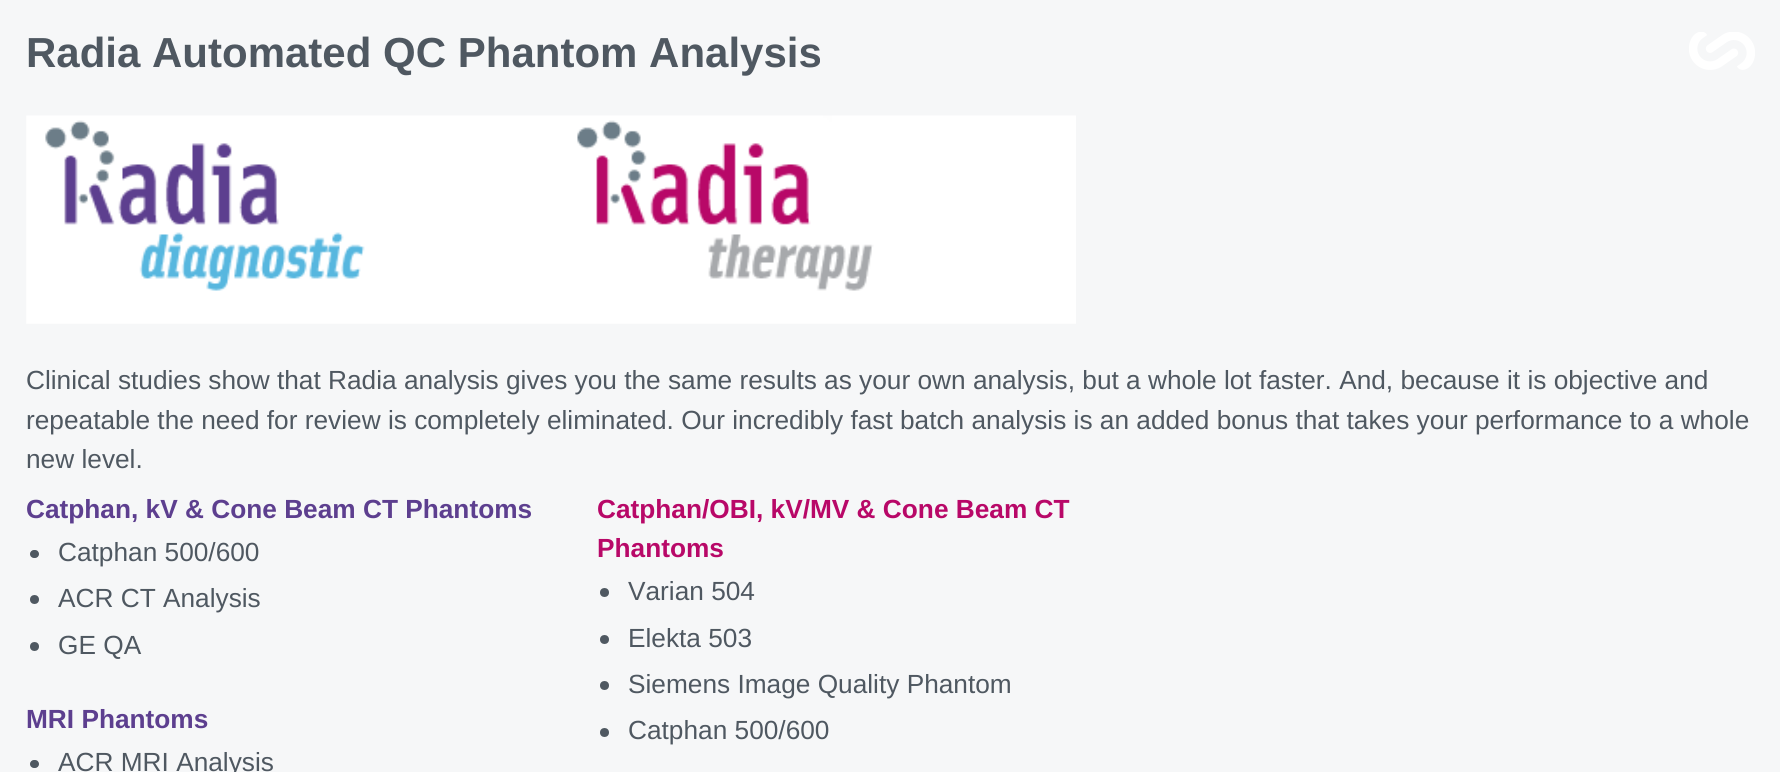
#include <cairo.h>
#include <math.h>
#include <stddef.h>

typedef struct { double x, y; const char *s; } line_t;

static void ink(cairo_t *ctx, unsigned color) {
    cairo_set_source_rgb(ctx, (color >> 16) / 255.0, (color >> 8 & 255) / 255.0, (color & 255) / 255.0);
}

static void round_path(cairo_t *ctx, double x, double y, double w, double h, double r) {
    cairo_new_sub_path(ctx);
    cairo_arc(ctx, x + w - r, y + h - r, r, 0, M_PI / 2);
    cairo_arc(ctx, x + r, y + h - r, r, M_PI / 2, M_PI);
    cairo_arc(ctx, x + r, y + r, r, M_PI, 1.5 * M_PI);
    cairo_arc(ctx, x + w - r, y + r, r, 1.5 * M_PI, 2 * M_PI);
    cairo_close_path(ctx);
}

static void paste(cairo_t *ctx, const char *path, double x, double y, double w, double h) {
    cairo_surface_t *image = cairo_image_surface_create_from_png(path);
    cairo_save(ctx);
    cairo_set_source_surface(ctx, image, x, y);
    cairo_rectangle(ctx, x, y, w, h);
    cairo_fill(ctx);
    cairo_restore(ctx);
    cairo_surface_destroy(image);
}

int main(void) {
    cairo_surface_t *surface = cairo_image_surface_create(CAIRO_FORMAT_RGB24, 1780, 772);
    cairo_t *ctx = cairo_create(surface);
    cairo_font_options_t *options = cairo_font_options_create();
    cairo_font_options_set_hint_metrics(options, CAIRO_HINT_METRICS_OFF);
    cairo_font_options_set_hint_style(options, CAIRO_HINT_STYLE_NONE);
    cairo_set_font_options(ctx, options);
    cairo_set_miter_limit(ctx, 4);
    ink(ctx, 0xF6F7F8);
    cairo_paint(ctx);
    paste(ctx, "media/1.png", 1689, 32, 66, 38);
    cairo_select_font_face(ctx, "Liberation Sans", CAIRO_FONT_SLANT_NORMAL, CAIRO_FONT_WEIGHT_BOLD);
    cairo_set_font_size(ctx, 42);
    ink(ctx, 0x4F5861);
    cairo_move_to(ctx, 26, 67);
    cairo_show_text(ctx, "Radia Automated QC Phantom Analysis");
    paste(ctx, "media/2.png", 26, 115, 1050, 209);
    cairo_select_font_face(ctx, "Liberation Sans", CAIRO_FONT_SLANT_NORMAL, CAIRO_FONT_WEIGHT_NORMAL);
    cairo_set_font_size(ctx, 26.25);
    {
        static const line_t items[] = {
            {26, 389, "Clinical studies show that Radia analysis gives you the same results as your own analysis, but a whole lot faster. And, because it is objective and"},
            {26, 429, "repeatable the need for review is completely eliminated. Our incredibly fast batch analysis is an added bonus that takes your performance to a whole"},
            {26, 468, "new level."},
        };
        for (size_t i = 0; i < sizeof items / sizeof *items; i++) {
            cairo_move_to(ctx, items[i].x, items[i].y);
            cairo_show_text(ctx, items[i].s);
        }
    }
    cairo_select_font_face(ctx, "Liberation Sans", CAIRO_FONT_SLANT_NORMAL, CAIRO_FONT_WEIGHT_BOLD);
    ink(ctx, 0x5D3F8F);
    cairo_move_to(ctx, 26, 518);
    cairo_show_text(ctx, "Catphan, kV & Cone Beam CT Phantoms");
    ink(ctx, 0x4F5861);
    round_path(ctx, 30, 550, 9, 8, 4);
    cairo_fill(ctx);
    cairo_select_font_face(ctx, "Liberation Sans", CAIRO_FONT_SLANT_NORMAL, CAIRO_FONT_WEIGHT_NORMAL);
    cairo_move_to(ctx, 58, 561);
    cairo_show_text(ctx, "Catphan 500/600");
    cairo_new_path(ctx);
    cairo_arc(ctx, 34.5, 599.5, 4.5, 0, 2 * M_PI);
    cairo_fill(ctx);
    cairo_move_to(ctx, 58, 607);
    cairo_show_text(ctx, "ACR CT Analysis");
    cairo_new_path(ctx);
    cairo_arc(ctx, 34.5, 646.5, 4.5, 0, 2 * M_PI);
    cairo_fill(ctx);
    cairo_move_to(ctx, 58, 654);
    cairo_show_text(ctx, "GE QA");
    cairo_select_font_face(ctx, "Liberation Sans", CAIRO_FONT_SLANT_NORMAL, CAIRO_FONT_WEIGHT_BOLD);
    ink(ctx, 0x5D3F8F);
    cairo_move_to(ctx, 26, 728);
    cairo_show_text(ctx, "MRI Phantoms");
    ink(ctx, 0x4F5861);
    round_path(ctx, 30, 760, 9, 8, 4);
    cairo_fill(ctx);
    cairo_select_font_face(ctx, "Liberation Sans", CAIRO_FONT_SLANT_NORMAL, CAIRO_FONT_WEIGHT_NORMAL);
    cairo_move_to(ctx, 58, 771);
    cairo_show_text(ctx, "ACR MRI Analysis");
    cairo_select_font_face(ctx, "Liberation Sans", CAIRO_FONT_SLANT_NORMAL, CAIRO_FONT_WEIGHT_BOLD);
    ink(ctx, 0xB80868);
    cairo_move_to(ctx, 597, 518);
    cairo_show_text(ctx, "Catphan/OBI, kV/MV & Cone Beam CT");
    cairo_move_to(ctx, 597, 557);
    cairo_show_text(ctx, "Phantoms");
    ink(ctx, 0x4F5861);
    cairo_new_path(ctx);
    cairo_arc(ctx, 604.5, 592.5, 4.5, 0, 2 * M_PI);
    cairo_fill(ctx);
    cairo_select_font_face(ctx, "Liberation Sans", CAIRO_FONT_SLANT_NORMAL, CAIRO_FONT_WEIGHT_NORMAL);
    cairo_move_to(ctx, 628, 600);
    cairo_show_text(ctx, "Varian 504");
    cairo_new_path(ctx);
    cairo_arc(ctx, 604.5, 639.5, 4.5, 0, 2 * M_PI);
    cairo_fill(ctx);
    cairo_move_to(ctx, 628, 647);
    cairo_show_text(ctx, "Elekta 503");
    cairo_new_path(ctx);
    cairo_arc(ctx, 604.5, 685.5, 4.5, 0, 2 * M_PI);
    cairo_fill(ctx);
    cairo_move_to(ctx, 628, 693);
    cairo_show_text(ctx, "Siemens Image Quality Phantom");
    cairo_new_path(ctx);
    cairo_arc(ctx, 604.5, 732.5, 4.5, 0, 2 * M_PI);
    cairo_fill(ctx);
    cairo_move_to(ctx, 628, 739);
    cairo_show_text(ctx, "Catphan 500/600");
    cairo_surface_write_to_png(surface, "image.png");
    cairo_font_options_destroy(options);
    cairo_destroy(ctx);
    cairo_surface_destroy(surface);
    return 0;
}
